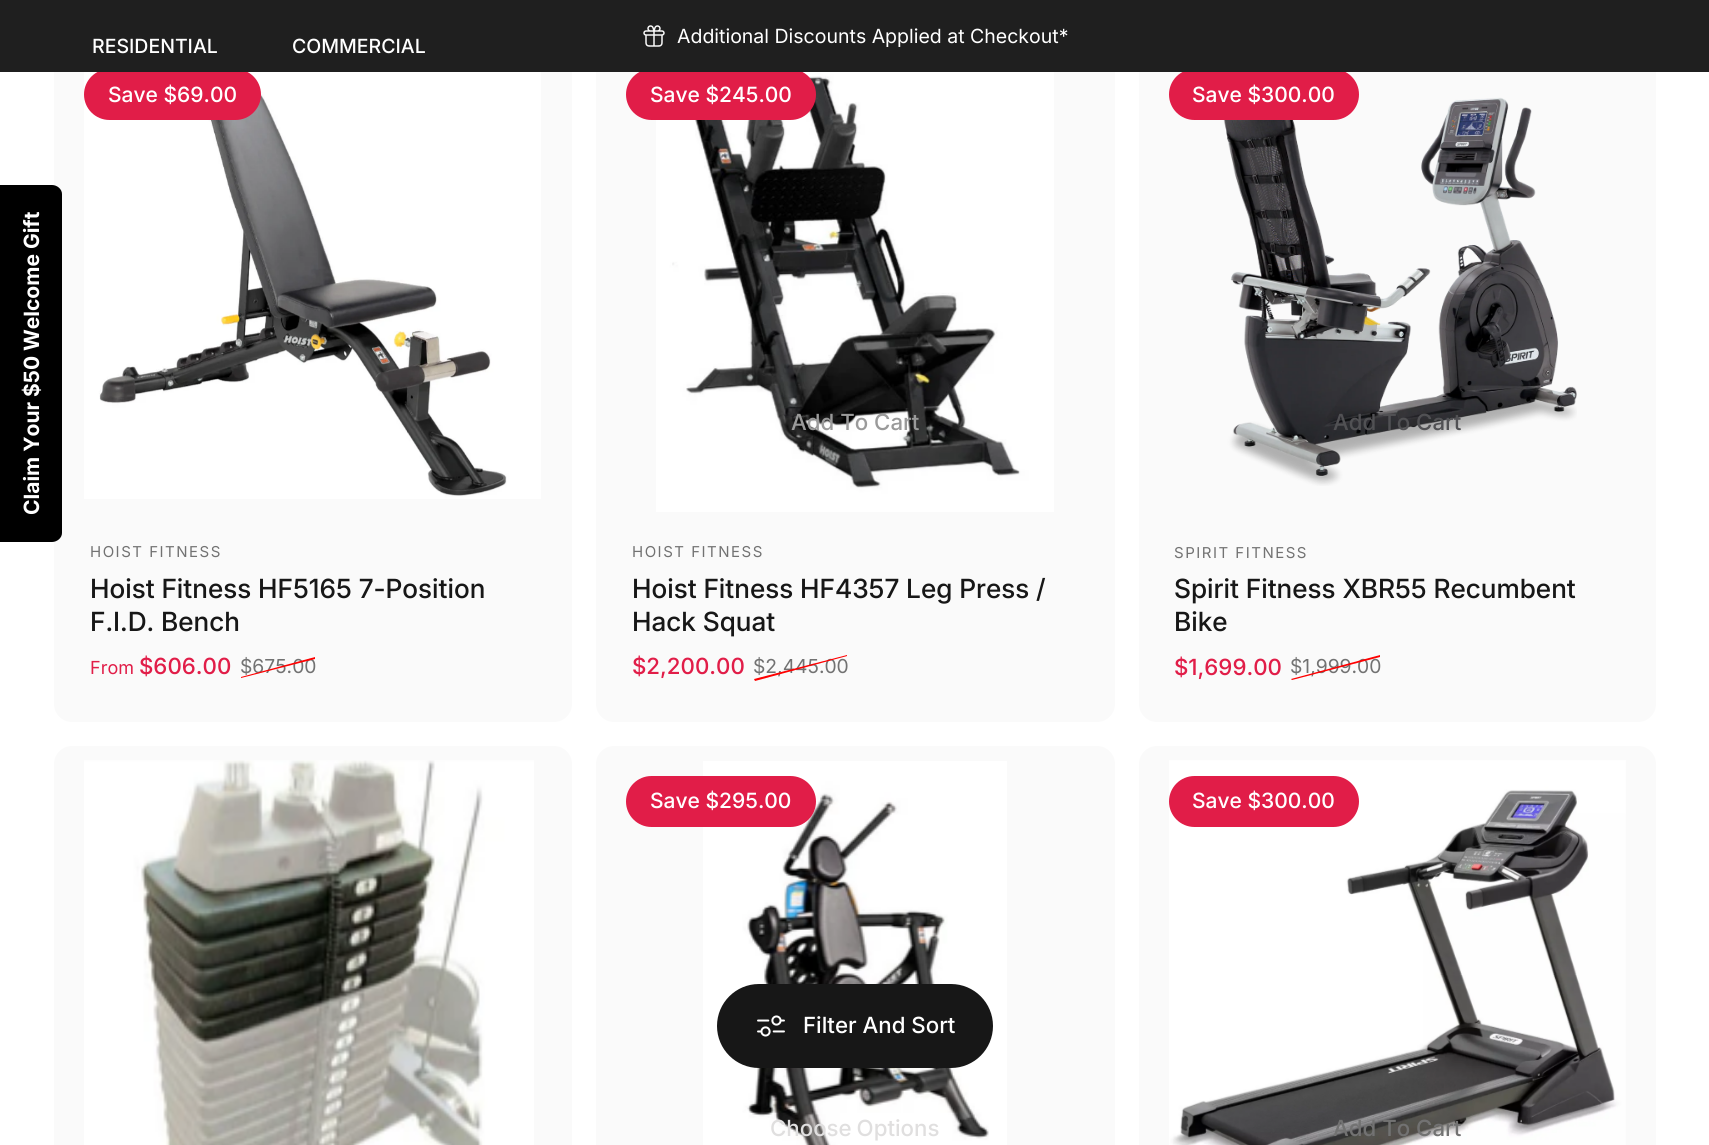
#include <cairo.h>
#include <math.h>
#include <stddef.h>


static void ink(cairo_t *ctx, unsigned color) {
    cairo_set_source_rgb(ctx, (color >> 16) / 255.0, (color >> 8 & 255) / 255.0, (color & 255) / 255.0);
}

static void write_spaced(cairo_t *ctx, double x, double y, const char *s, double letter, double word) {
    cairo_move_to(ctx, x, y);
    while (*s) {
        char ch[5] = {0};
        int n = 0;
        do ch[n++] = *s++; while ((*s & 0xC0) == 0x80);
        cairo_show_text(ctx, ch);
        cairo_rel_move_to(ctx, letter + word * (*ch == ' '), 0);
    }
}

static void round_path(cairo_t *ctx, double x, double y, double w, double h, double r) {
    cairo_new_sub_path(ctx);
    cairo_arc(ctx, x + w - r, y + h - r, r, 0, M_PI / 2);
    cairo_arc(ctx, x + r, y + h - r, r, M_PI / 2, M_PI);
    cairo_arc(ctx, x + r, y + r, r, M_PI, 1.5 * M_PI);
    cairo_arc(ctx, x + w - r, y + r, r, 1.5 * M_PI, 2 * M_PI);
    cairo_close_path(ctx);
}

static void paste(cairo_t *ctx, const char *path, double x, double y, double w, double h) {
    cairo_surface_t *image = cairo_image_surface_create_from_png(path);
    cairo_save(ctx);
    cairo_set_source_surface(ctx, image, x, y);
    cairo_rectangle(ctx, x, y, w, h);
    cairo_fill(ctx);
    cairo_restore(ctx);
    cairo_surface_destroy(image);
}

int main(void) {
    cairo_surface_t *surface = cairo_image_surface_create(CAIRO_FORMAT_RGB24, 1709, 1145);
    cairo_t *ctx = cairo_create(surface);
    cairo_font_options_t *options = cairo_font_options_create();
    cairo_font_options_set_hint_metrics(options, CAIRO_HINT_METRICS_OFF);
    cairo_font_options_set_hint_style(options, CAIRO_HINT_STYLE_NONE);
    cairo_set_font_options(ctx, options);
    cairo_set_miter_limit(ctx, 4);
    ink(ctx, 0xFFFFFF);
    cairo_paint(ctx);
    ink(ctx, 0xFAFAFA);
    round_path(ctx, 54, 39, 518, 683, 18);
    cairo_fill(ctx);
    paste(ctx, "media/2.png", 84, 72, 457, 427);
    ink(ctx, 0xE11D48);
    round_path(ctx, 84, 69, 177, 51, 25.5);
    cairo_fill(ctx);
    ink(ctx, 0xFAFAFA);
    round_path(ctx, 596, 39, 519, 683, 18);
    cairo_fill(ctx);
    paste(ctx, "media/3.png", 656, 72, 398, 440);
    ink(ctx, 0xE11D48);
    round_path(ctx, 626, 69, 190, 51, 25.5);
    cairo_fill(ctx);
    ink(ctx, 0xFAFAFA);
    round_path(ctx, 1139, 39, 517, 683, 18);
    cairo_fill(ctx);
    paste(ctx, "media/4.png", 1223, 97, 354, 389);
    ink(ctx, 0xE11D48);
    round_path(ctx, 1169, 69, 190, 51, 25.5);
    cairo_fill(ctx);
    ink(ctx, 0x1F1F1F);
    cairo_rectangle(ctx, 0, 0, 1709, 72);
    cairo_fill(ctx);
    cairo_select_font_face(ctx, "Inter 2 Medium", CAIRO_FONT_SLANT_NORMAL, CAIRO_FONT_WEIGHT_NORMAL);
    cairo_set_font_size(ctx, 19.5);
    ink(ctx, 0xFFFFFF);
    cairo_move_to(ctx, 92, 53);
    cairo_show_text(ctx, "RESIDENTIAL");
    cairo_move_to(ctx, 292, 53);
    cairo_show_text(ctx, "COMMERCIAL");
    paste(ctx, "media/1.png", 643, 25, 22, 22);
    cairo_select_font_face(ctx, "Inter", CAIRO_FONT_SLANT_NORMAL, CAIRO_FONT_WEIGHT_NORMAL);
    cairo_move_to(ctx, 677, 43);
    cairo_show_text(ctx, "Additional Discounts Applied at Checkout*");
    ink(ctx, 0x000000);
    cairo_new_path(ctx);
    cairo_move_to(ctx, 0, 542);
    cairo_line_to(ctx, 0, 185);
    cairo_line_to(ctx, 52, 185);
    cairo_curve_to(ctx, 57, 185, 62, 189, 62, 194);
    cairo_line_to(ctx, 62, 533);
    cairo_curve_to(ctx, 62, 538, 57, 542, 52, 542);
    cairo_close_path(ctx);
    cairo_fill(ctx);
    cairo_select_font_face(ctx, "Inter", CAIRO_FONT_SLANT_NORMAL, CAIRO_FONT_WEIGHT_BOLD);
    cairo_set_font_size(ctx, 21);
    ink(ctx, 0xFFFFFF);
    cairo_save(ctx);
    cairo_translate(ctx, 39, 515);
    cairo_rotate(ctx, -90 * M_PI / 180);
    cairo_move_to(ctx, 0, 0);
    cairo_show_text(ctx, "Claim Your $50 Welcome Gift");
    cairo_restore(ctx);
    cairo_select_font_face(ctx, "Inter 2 Medium", CAIRO_FONT_SLANT_NORMAL, CAIRO_FONT_WEIGHT_NORMAL);
    cairo_move_to(ctx, 108, 102);
    cairo_show_text(ctx, "Save $69.00");
    cairo_select_font_face(ctx, "Inter", CAIRO_FONT_SLANT_NORMAL, CAIRO_FONT_WEIGHT_NORMAL);
    cairo_set_font_size(ctx, 15);
    ink(ctx, 0x727272);
    write_spaced(ctx, 90, 557, "HOIST FITNESS", 1.5, 0);
    cairo_select_font_face(ctx, "Inter Medium", CAIRO_FONT_SLANT_NORMAL, CAIRO_FONT_WEIGHT_NORMAL);
    cairo_set_font_size(ctx, 26.4);
    ink(ctx, 0x171717);
    cairo_move_to(ctx, 90, 598);
    cairo_show_text(ctx, "Hoist Fitness HF5165 7-Position");
    cairo_move_to(ctx, 90, 631);
    cairo_show_text(ctx, "F.I.D. Bench");
    cairo_select_font_face(ctx, "Inter", CAIRO_FONT_SLANT_NORMAL, CAIRO_FONT_WEIGHT_NORMAL);
    cairo_set_font_size(ctx, 18);
    ink(ctx, 0xE11D48);
    cairo_move_to(ctx, 90, 674);
    cairo_show_text(ctx, "From");
    cairo_select_font_face(ctx, "Inter 2 Medium", CAIRO_FONT_SLANT_NORMAL, CAIRO_FONT_WEIGHT_NORMAL);
    cairo_set_font_size(ctx, 22.25);
    cairo_move_to(ctx, 139, 674);
    cairo_show_text(ctx, "$606.00");
    cairo_select_font_face(ctx, "Inter", CAIRO_FONT_SLANT_NORMAL, CAIRO_FONT_WEIGHT_NORMAL);
    cairo_set_font_size(ctx, 19.25);
    ink(ctx, 0x727272);
    cairo_move_to(ctx, 240, 673);
    cairo_show_text(ctx, "$675.00");
    ink(ctx, 0xFF0000);
    cairo_new_path(ctx);
    cairo_move_to(ctx, 241, 677);
    cairo_line_to(ctx, 315, 657);
    cairo_line_to(ctx, 315, 659);
    cairo_line_to(ctx, 241, 678);
    cairo_close_path(ctx);
    cairo_fill(ctx);
    cairo_select_font_face(ctx, "Inter 2 Medium", CAIRO_FONT_SLANT_NORMAL, CAIRO_FONT_WEIGHT_NORMAL);
    cairo_set_font_size(ctx, 21);
    ink(ctx, 0xFFFFFF);
    cairo_move_to(ctx, 650, 102);
    cairo_show_text(ctx, "Save $245.00");
    cairo_set_font_size(ctx, 22.25);
    ink(ctx, 0x9A9A9A);
    cairo_move_to(ctx, 791, 430);
    cairo_show_text(ctx, "Add To Cart");
    cairo_select_font_face(ctx, "Inter", CAIRO_FONT_SLANT_NORMAL, CAIRO_FONT_WEIGHT_NORMAL);
    cairo_set_font_size(ctx, 15);
    ink(ctx, 0x727272);
    write_spaced(ctx, 632, 557, "HOIST FITNESS", 1.5, 0);
    cairo_select_font_face(ctx, "Inter Medium", CAIRO_FONT_SLANT_NORMAL, CAIRO_FONT_WEIGHT_NORMAL);
    cairo_set_font_size(ctx, 26.4);
    ink(ctx, 0x171717);
    cairo_move_to(ctx, 632, 598);
    cairo_show_text(ctx, "Hoist Fitness HF4357 Leg Press /");
    cairo_move_to(ctx, 632, 631);
    cairo_show_text(ctx, "Hack Squat");
    cairo_select_font_face(ctx, "Inter 2 Medium", CAIRO_FONT_SLANT_NORMAL, CAIRO_FONT_WEIGHT_NORMAL);
    cairo_set_font_size(ctx, 22.25);
    ink(ctx, 0xE11D48);
    cairo_move_to(ctx, 632, 674);
    cairo_show_text(ctx, "$2,200.00");
    cairo_select_font_face(ctx, "Inter", CAIRO_FONT_SLANT_NORMAL, CAIRO_FONT_WEIGHT_NORMAL);
    cairo_set_font_size(ctx, 19.25);
    ink(ctx, 0x727272);
    cairo_move_to(ctx, 753, 673);
    cairo_show_text(ctx, "$2,445.00");
    ink(ctx, 0xFF0000);
    cairo_new_path(ctx);
    cairo_move_to(ctx, 754, 679);
    cairo_line_to(ctx, 847, 655);
    cairo_line_to(ctx, 847, 656);
    cairo_line_to(ctx, 755, 681);
    cairo_close_path(ctx);
    cairo_fill(ctx);
    cairo_select_font_face(ctx, "Inter 2 Medium", CAIRO_FONT_SLANT_NORMAL, CAIRO_FONT_WEIGHT_NORMAL);
    cairo_set_font_size(ctx, 21);
    ink(ctx, 0xFFFFFF);
    cairo_move_to(ctx, 1192, 102);
    cairo_show_text(ctx, "Save $300.00");
    cairo_set_font_size(ctx, 22.25);
    ink(ctx, 0x515154);
    cairo_move_to(ctx, 1333, 430);
    cairo_show_text(ctx, "Add To Cart");
    cairo_select_font_face(ctx, "Inter", CAIRO_FONT_SLANT_NORMAL, CAIRO_FONT_WEIGHT_NORMAL);
    cairo_set_font_size(ctx, 15);
    ink(ctx, 0x727272);
    write_spaced(ctx, 1174, 558, "SPIRIT FITNESS", 1.5, 0);
    cairo_select_font_face(ctx, "Inter Medium", CAIRO_FONT_SLANT_NORMAL, CAIRO_FONT_WEIGHT_NORMAL);
    cairo_set_font_size(ctx, 26.4);
    ink(ctx, 0x171717);
    cairo_move_to(ctx, 1174, 598);
    cairo_show_text(ctx, "Spirit Fitness XBR55 Recumbent");
    cairo_move_to(ctx, 1174, 631);
    cairo_show_text(ctx, "Bike");
    cairo_select_font_face(ctx, "Inter 2 Medium", CAIRO_FONT_SLANT_NORMAL, CAIRO_FONT_WEIGHT_NORMAL);
    cairo_set_font_size(ctx, 22.25);
    ink(ctx, 0xE11D48);
    cairo_move_to(ctx, 1174, 675);
    cairo_show_text(ctx, "$1,699.00");
    cairo_select_font_face(ctx, "Inter", CAIRO_FONT_SLANT_NORMAL, CAIRO_FONT_WEIGHT_NORMAL);
    cairo_set_font_size(ctx, 19.25);
    ink(ctx, 0x727272);
    cairo_move_to(ctx, 1290, 673);
    cairo_show_text(ctx, "$1,999.00");
    ink(ctx, 0xFF0000);
    cairo_new_path(ctx);
    cairo_move_to(ctx, 1291, 679);
    cairo_line_to(ctx, 1380, 655);
    cairo_line_to(ctx, 1380, 657);
    cairo_line_to(ctx, 1292, 680);
    cairo_close_path(ctx);
    cairo_fill(ctx);
    ink(ctx, 0xFAFAFA);
    round_path(ctx, 54, 746, 518, 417, 18);
    cairo_fill(ctx);
    paste(ctx, "media/5.png", 84, 760, 450, 385);
    round_path(ctx, 596, 746, 519, 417, 18);
    cairo_fill(ctx);
    paste(ctx, "media/6.png", 703, 761, 304, 384);
    ink(ctx, 0xE11D48);
    round_path(ctx, 626, 776, 190, 51, 25.5);
    cairo_fill(ctx);
    cairo_select_font_face(ctx, "Inter 2 Medium", CAIRO_FONT_SLANT_NORMAL, CAIRO_FONT_WEIGHT_NORMAL);
    cairo_set_font_size(ctx, 21);
    ink(ctx, 0xFFFFFF);
    cairo_move_to(ctx, 650, 808);
    cairo_show_text(ctx, "Save $295.00");
    cairo_set_font_size(ctx, 22.25);
    ink(ctx, 0xE0DFDF);
    write_spaced(ctx, 770, 1136, "Choose Options", 0, -1);
    ink(ctx, 0xFAFAFA);
    round_path(ctx, 1139, 746, 517, 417, 18);
    cairo_fill(ctx);
    paste(ctx, "media/7.png", 1169, 760, 457, 385);
    ink(ctx, 0xE11D48);
    round_path(ctx, 1169, 776, 190, 51, 25.5);
    cairo_fill(ctx);
    cairo_set_font_size(ctx, 21);
    ink(ctx, 0xFFFFFF);
    cairo_move_to(ctx, 1192, 808);
    cairo_show_text(ctx, "Save $300.00");
    cairo_set_font_size(ctx, 22.25);
    ink(ctx, 0x727272);
    cairo_move_to(ctx, 1333, 1136);
    cairo_show_text(ctx, "Add To Cart");
    ink(ctx, 0x171717);
    round_path(ctx, 718.5, 985.5, 273, 81, 40.5);
    cairo_fill_preserve(ctx);
    cairo_set_line_width(ctx, 3);
    cairo_stroke(ctx);
    paste(ctx, "media/8.png", 757, 1015, 28, 22);
    ink(ctx, 0xFFFFFF);
    cairo_move_to(ctx, 803, 1033);
    cairo_show_text(ctx, "Filter And Sort");
    cairo_surface_write_to_png(surface, "image.png");
    cairo_font_options_destroy(options);
    cairo_destroy(ctx);
    cairo_surface_destroy(surface);
    return 0;
}
